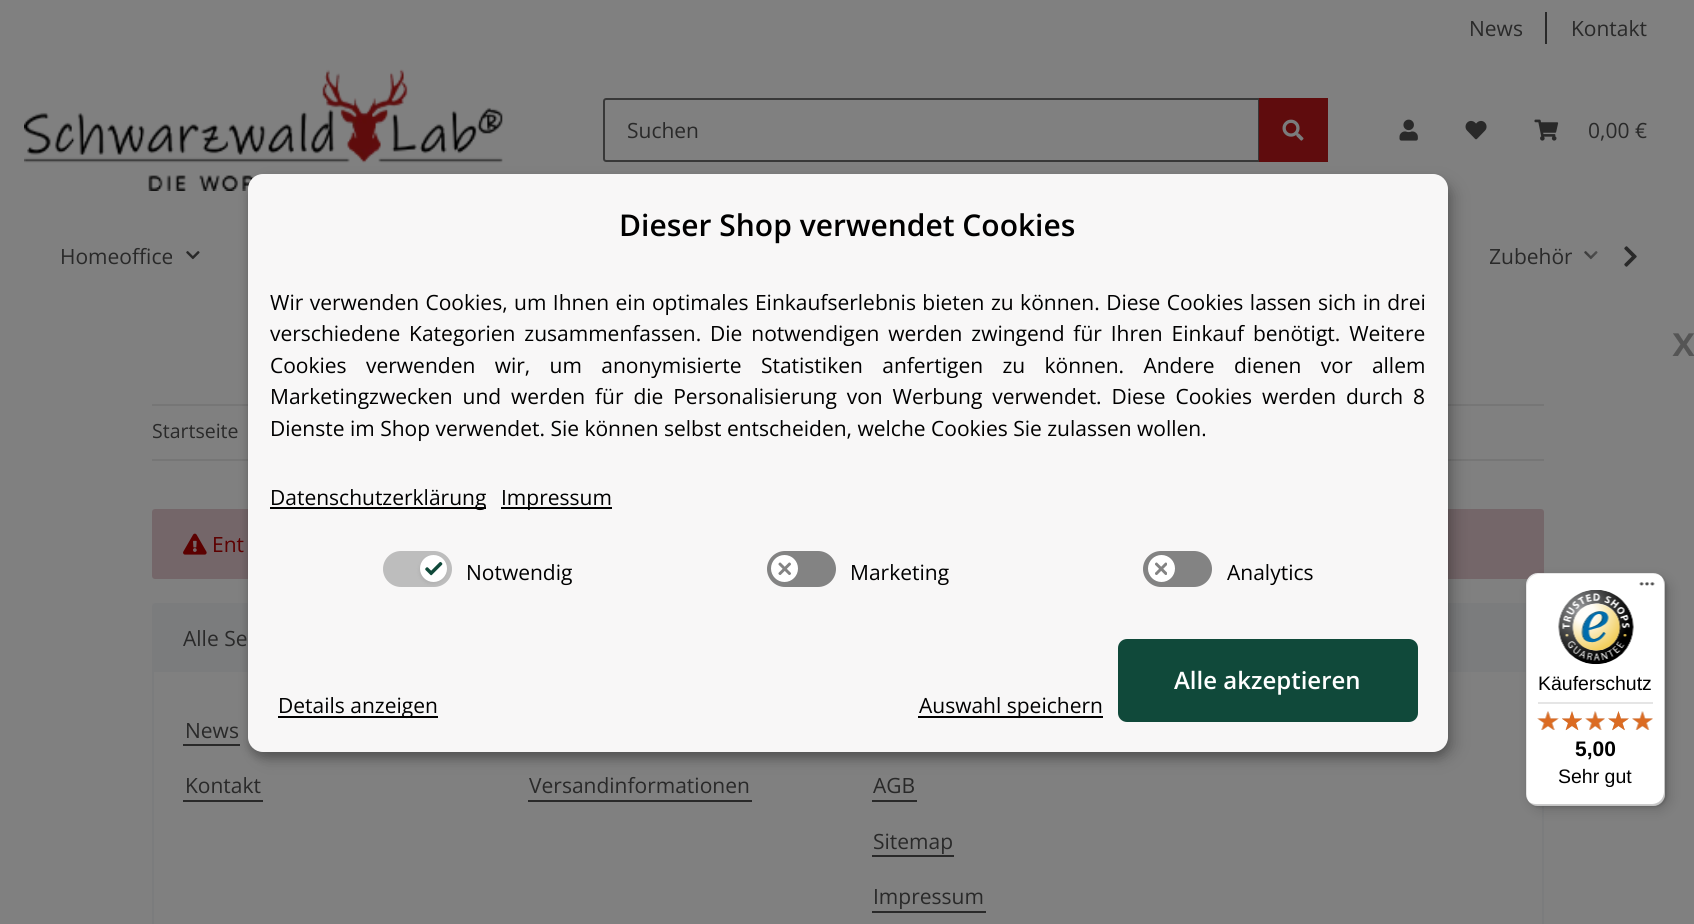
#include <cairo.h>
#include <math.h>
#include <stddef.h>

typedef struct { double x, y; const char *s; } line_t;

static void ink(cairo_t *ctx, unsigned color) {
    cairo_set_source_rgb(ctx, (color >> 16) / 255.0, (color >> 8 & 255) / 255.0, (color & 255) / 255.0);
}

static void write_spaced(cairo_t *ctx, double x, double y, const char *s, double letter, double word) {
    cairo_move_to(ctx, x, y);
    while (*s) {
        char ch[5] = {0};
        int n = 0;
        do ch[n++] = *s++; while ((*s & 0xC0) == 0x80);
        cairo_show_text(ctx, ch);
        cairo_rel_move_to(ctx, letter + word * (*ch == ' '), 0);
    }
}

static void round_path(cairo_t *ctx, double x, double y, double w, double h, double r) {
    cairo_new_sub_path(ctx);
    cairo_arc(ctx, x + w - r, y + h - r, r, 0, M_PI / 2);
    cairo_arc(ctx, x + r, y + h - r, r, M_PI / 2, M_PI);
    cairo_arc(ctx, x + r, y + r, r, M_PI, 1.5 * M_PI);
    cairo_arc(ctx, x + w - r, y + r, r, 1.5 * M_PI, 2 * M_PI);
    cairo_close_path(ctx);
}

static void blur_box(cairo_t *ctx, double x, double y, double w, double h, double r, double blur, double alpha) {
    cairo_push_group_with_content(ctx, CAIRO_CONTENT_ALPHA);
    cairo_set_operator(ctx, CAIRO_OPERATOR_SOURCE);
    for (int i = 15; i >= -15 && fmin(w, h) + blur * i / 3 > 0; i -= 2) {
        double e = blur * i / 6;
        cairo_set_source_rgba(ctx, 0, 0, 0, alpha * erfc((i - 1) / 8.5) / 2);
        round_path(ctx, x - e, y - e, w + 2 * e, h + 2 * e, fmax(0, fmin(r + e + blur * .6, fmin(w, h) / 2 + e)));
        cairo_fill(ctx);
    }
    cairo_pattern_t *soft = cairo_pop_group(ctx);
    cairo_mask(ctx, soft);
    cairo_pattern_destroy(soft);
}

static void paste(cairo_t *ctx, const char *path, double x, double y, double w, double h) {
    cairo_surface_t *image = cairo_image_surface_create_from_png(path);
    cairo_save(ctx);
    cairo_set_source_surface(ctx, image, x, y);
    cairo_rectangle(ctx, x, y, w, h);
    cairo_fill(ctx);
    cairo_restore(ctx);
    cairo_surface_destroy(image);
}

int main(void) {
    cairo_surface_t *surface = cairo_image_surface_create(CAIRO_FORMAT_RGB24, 1694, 924);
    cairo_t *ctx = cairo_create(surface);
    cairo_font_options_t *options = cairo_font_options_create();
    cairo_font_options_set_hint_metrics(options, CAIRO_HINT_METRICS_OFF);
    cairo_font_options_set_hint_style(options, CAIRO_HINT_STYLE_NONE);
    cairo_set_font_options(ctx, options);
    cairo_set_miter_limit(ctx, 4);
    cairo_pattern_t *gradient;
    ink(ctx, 0x808080);
    cairo_paint(ctx);
    cairo_select_font_face(ctx, "Open Sans", CAIRO_FONT_SLANT_NORMAL, CAIRO_FONT_WEIGHT_NORMAL);
    cairo_set_font_size(ctx, 21);
    ink(ctx, 0x292929);
    cairo_move_to(ctx, 1469, 36);
    cairo_show_text(ctx, "News");
    cairo_rectangle(ctx, 1545, 12, 2, 32);
    cairo_fill(ctx);
    cairo_move_to(ctx, 1571, 36);
    cairo_show_text(ctx, "Kontakt");
    paste(ctx, "media/1.png", 24, 69, 479, 122);
    cairo_new_path(ctx);
    cairo_move_to(ctx, 606, 99);
    cairo_line_to(ctx, 1259, 99);
    cairo_line_to(ctx, 1259, 161);
    cairo_line_to(ctx, 606, 161);
    cairo_curve_to(ctx, 605, 161, 604, 160, 604, 159);
    cairo_line_to(ctx, 604, 101);
    cairo_curve_to(ctx, 604, 100, 605, 99, 606, 99);
    cairo_close_path(ctx);
    ink(ctx, 0x383838);
    cairo_stroke(ctx);
    ink(ctx, 0x292929);
    cairo_move_to(ctx, 627, 138);
    cairo_show_text(ctx, "Suchen");
    ink(ctx, 0x5F0C0D);
    cairo_rectangle(ctx, 1259, 98, 69, 64);
    cairo_fill(ctx);
    paste(ctx, "media/2.png", 1282, 119, 22, 22);
    paste(ctx, "media/3.png", 1399, 119, 19, 22);
    paste(ctx, "media/4.png", 1465, 120, 22, 20);
    paste(ctx, "media/5.png", 1534, 119, 25, 22);
    ink(ctx, 0x292929);
    cairo_move_to(ctx, 1588, 138);
    cairo_show_text(ctx, "0,00 €");
    cairo_move_to(ctx, 60, 264);
    cairo_show_text(ctx, "Homeoffice");
    paste(ctx, "media/6.png", 186, 251, 14, 9);
    cairo_save(ctx);
    cairo_rectangle(ctx, 1490, 240, 82, 32);
    cairo_clip(ctx);
    cairo_move_to(ctx, 1489, 264);
    cairo_show_text(ctx, "Zubehör");
    cairo_restore(ctx);
    paste(ctx, "media/6.png", 1584, 251, 14, 9);
    gradient = cairo_pattern_create_linear(1575, 257, 1647, 257);
    cairo_pattern_add_color_stop_rgba(gradient, 0, 0.502, 0.502, 0.502, 0.01);
    cairo_pattern_add_color_stop_rgba(gradient, 0.7, 0.502, 0.502, 0.502, 1);
    cairo_set_source(ctx, gradient);
    cairo_pattern_destroy(gradient);
    cairo_rectangle(ctx, 1584, 251, 14, 8);
    cairo_fill(ctx);
    paste(ctx, "media/7.png", 1624, 246, 13, 21);
    ink(ctx, 0x767676);
    cairo_rectangle(ctx, 152, 404, 1392, 2);
    cairo_fill(ctx);
    cairo_rectangle(ctx, 152, 459, 1392, 2);
    cairo_fill(ctx);
    ink(ctx, 0x746669);
    round_path(ctx, 153, 510, 1390, 68, 2);
    cairo_fill_preserve(ctx);
    cairo_stroke(ctx);
    round_path(ctx, 153, 604, 1390, 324, 2);
    ink(ctx, 0x7B7C7D);
    cairo_stroke(ctx);
    cairo_new_path(ctx);
    cairo_move_to(ctx, 154.5, 605);
    cairo_line_to(ctx, 1540.5, 605);
    cairo_curve_to(ctx, 1541.5, 605, 1542, 605.5, 1542, 606.5);
    cairo_line_to(ctx, 1542, 672);
    cairo_line_to(ctx, 153, 672);
    cairo_line_to(ctx, 153, 606.5);
    cairo_curve_to(ctx, 153, 605.5, 153.5, 605, 154.5, 605);
    cairo_close_path(ctx);
    cairo_fill(ctx);
    ink(ctx, 0x292929);
    cairo_rectangle(ctx, 183, 744, 57, 2);
    cairo_fill(ctx);
    ink(ctx, 0x000000);
    blur_box(ctx, 255, 182, 1200, 577, 15, 7.5, 0.19);
    blur_box(ctx, 248, 180, 1200, 578, 15, 4.5, 0.2);
    ink(ctx, 0xF8F7F7);
    round_path(ctx, 248, 174, 1200, 578, 15);
    cairo_fill(ctx);
    cairo_select_font_face(ctx, "Open Sans SemiBold", CAIRO_FONT_SLANT_NORMAL, CAIRO_FONT_WEIGHT_NORMAL);
    cairo_set_font_size(ctx, 30);
    ink(ctx, 0x000000);
    cairo_move_to(ctx, 619, 236);
    cairo_show_text(ctx, "Dieser Shop verwendet Cookies");
    cairo_select_font_face(ctx, "Open Sans", CAIRO_FONT_SLANT_NORMAL, CAIRO_FONT_WEIGHT_NORMAL);
    cairo_set_font_size(ctx, 21);
    write_spaced(ctx, 270, 310, "Wir verwenden Cookies, um Ihnen ein optimales Einkaufserlebnis bieten zu können. Diese Cookies lassen sich in drei", 0, 1);
    write_spaced(ctx, 270, 341, "verschiedene Kategorien zusammenfassen. Die notwendigen werden zwingend für Ihren Einkauf benötigt. Weitere", 0, 3.4);
    write_spaced(ctx, 270, 373, "Cookies verwenden wir, um anonymisierte Statistiken anfertigen zu können. Andere dienen vor allem", 0, 13.9);
    write_spaced(ctx, 270, 404, "Marketingzwecken und werden für die Personalisierung von Werbung verwendet. Diese Cookies werden durch 8", 0, 4.4);
    cairo_move_to(ctx, 270, 436);
    cairo_show_text(ctx, "Dienste im Shop verwendet. Sie können selbst entscheiden, welche Cookies Sie zulassen wollen.");
    cairo_rectangle(ctx, 270, 507, 216, 2);
    cairo_fill(ctx);
    cairo_move_to(ctx, 270, 505);
    cairo_show_text(ctx, "Datenschutzerklärung");
    cairo_rectangle(ctx, 501, 507, 111, 2);
    cairo_fill(ctx);
    cairo_move_to(ctx, 501, 505);
    cairo_show_text(ctx, "Impressum");
    ink(ctx, 0xBDBDBD);
    round_path(ctx, 383, 551, 69, 36, 18);
    cairo_fill(ctx);
    ink(ctx, 0xA3A3A3);
    blur_box(ctx, 419, 557, 27, 27, 13.5, 1.5, 0.45);
    ink(ctx, 0xFFFFFF);
    cairo_arc(ctx, 433.5, 568.5, 13.5, 0, 2 * M_PI);
    cairo_fill(ctx);
    paste(ctx, "media/8.png", 425, 562, 18, 14);
    ink(ctx, 0x000000);
    cairo_move_to(ctx, 466, 580);
    cairo_show_text(ctx, "Notwendig");
    ink(ctx, 0x838383);
    round_path(ctx, 767, 551, 69, 36, 18);
    cairo_fill(ctx);
    ink(ctx, 0xFFFFFF);
    cairo_arc(ctx, 784.5, 568.5, 13.5, 0, 2 * M_PI);
    cairo_fill(ctx);
    paste(ctx, "media/9.png", 778, 562, 13, 13);
    ink(ctx, 0x000000);
    cairo_move_to(ctx, 850, 580);
    cairo_show_text(ctx, "Marketing");
    ink(ctx, 0x838383);
    round_path(ctx, 1143, 551, 69, 36, 18);
    cairo_fill(ctx);
    ink(ctx, 0xFFFFFF);
    cairo_arc(ctx, 1161.5, 568.5, 13.5, 0, 2 * M_PI);
    cairo_fill(ctx);
    paste(ctx, "media/10.png", 1155, 562, 12, 13);
    ink(ctx, 0x000000);
    cairo_move_to(ctx, 1227, 580);
    cairo_show_text(ctx, "Analytics");
    ink(ctx, 0x10493A);
    round_path(ctx, 1119.5, 640.5, 297, 80, 7.5);
    cairo_fill_preserve(ctx);
    cairo_set_line_width(ctx, 3);
    cairo_stroke(ctx);
    cairo_select_font_face(ctx, "Open Sans SemiBold", CAIRO_FONT_SLANT_NORMAL, CAIRO_FONT_WEIGHT_NORMAL);
    cairo_set_font_size(ctx, 24);
    ink(ctx, 0xFFFFFF);
    cairo_move_to(ctx, 1174, 689);
    cairo_show_text(ctx, "Alle akzeptieren");
    ink(ctx, 0x000000);
    cairo_rectangle(ctx, 278, 716, 160, 2);
    cairo_fill(ctx);
    cairo_select_font_face(ctx, "Open Sans", CAIRO_FONT_SLANT_NORMAL, CAIRO_FONT_WEIGHT_NORMAL);
    cairo_set_font_size(ctx, 21);
    cairo_move_to(ctx, 278, 713);
    cairo_show_text(ctx, "Details anzeigen");
    cairo_rectangle(ctx, 918, 716, 185, 2);
    cairo_fill(ctx);
    cairo_move_to(ctx, 919, 713);
    cairo_show_text(ctx, "Auswahl speichern");
    cairo_select_font_face(ctx, "Open Sans SemiBold", CAIRO_FONT_SLANT_NORMAL, CAIRO_FONT_WEIGHT_NORMAL);
    cairo_set_font_size(ctx, 42);
    ink(ctx, 0x555555);
    cairo_move_to(ctx, 1672, 356);
    cairo_show_text(ctx, "x");
    cairo_select_font_face(ctx, "Open Sans", CAIRO_FONT_SLANT_NORMAL, CAIRO_FONT_WEIGHT_NORMAL);
    cairo_set_font_size(ctx, 19.5);
    ink(ctx, 0x292929);
    cairo_move_to(ctx, 152, 438);
    cairo_show_text(ctx, "Startseite");
    paste(ctx, "media/11.png", 183, 533, 24, 22);
    cairo_set_font_size(ctx, 21);
    ink(ctx, 0x5D0000);
    cairo_move_to(ctx, 212, 552);
    cairo_show_text(ctx, "Ent");
    ink(ctx, 0x292929);
    {
        static const line_t items[] = {
            {183, 646, "Alle Se"},
            {185, 738, "News"},
            {185, 793, "Kontakt"},
        };
        for (size_t i = 0; i < sizeof items / sizeof *items; i++) {
            cairo_move_to(ctx, items[i].x, items[i].y);
            cairo_show_text(ctx, items[i].s);
        }
    }
    cairo_rectangle(ctx, 183, 800, 80, 2);
    cairo_fill(ctx);
    cairo_move_to(ctx, 529, 793);
    cairo_show_text(ctx, "Versandinformationen");
    cairo_rectangle(ctx, 528, 800, 224, 2);
    cairo_fill(ctx);
    cairo_move_to(ctx, 873, 793);
    cairo_show_text(ctx, "AGB");
    cairo_rectangle(ctx, 872, 800, 45, 2);
    cairo_fill(ctx);
    cairo_move_to(ctx, 873, 849);
    cairo_show_text(ctx, "Sitemap");
    cairo_rectangle(ctx, 872, 855, 82, 2);
    cairo_fill(ctx);
    cairo_move_to(ctx, 873, 904);
    cairo_show_text(ctx, "Impressum");
    cairo_rectangle(ctx, 872, 911, 114, 2);
    cairo_fill(ctx);
    ink(ctx, 0x000000);
    blur_box(ctx, 1530, 578, 140, 232, 12, 6, 0.15);
    blur_box(ctx, 1527, 575, 140, 232, 12, 1.5, 0.15);
    ink(ctx, 0xFFFFFF);
    round_path(ctx, 1526, 573, 139, 233, 12);
    cairo_fill(ctx);
    cairo_set_source_rgba(ctx, 0, 0, 0, 0.1);
    cairo_new_path(ctx);
    cairo_move_to(ctx, 1539, 574);
    cairo_line_to(ctx, 1654, 574);
    cairo_curve_to(ctx, 1657, 574, 1660, 575, 1662, 577);
    cairo_curve_to(ctx, 1660, 575, 1657, 573, 1653, 573);
    cairo_line_to(ctx, 1538, 573);
    cairo_curve_to(ctx, 1531, 573, 1526, 578, 1526, 585);
    cairo_line_to(ctx, 1526, 794);
    cairo_curve_to(ctx, 1526, 797, 1527, 800, 1529, 802);
    cairo_curve_to(ctx, 1528, 800, 1527, 798, 1527, 795);
    cairo_line_to(ctx, 1527, 586);
    cairo_curve_to(ctx, 1527, 580, 1532, 574, 1539, 574);
    cairo_close_path(ctx);
    cairo_fill(ctx);
    cairo_set_source_rgba(ctx, 0, 0, 0, 0.2);
    cairo_new_path(ctx);
    cairo_move_to(ctx, 1529, 802);
    cairo_curve_to(ctx, 1531, 804, 1534, 806, 1538, 806);
    cairo_line_to(ctx, 1653, 806);
    cairo_curve_to(ctx, 1660, 806, 1665, 801, 1665, 794);
    cairo_line_to(ctx, 1665, 585);
    cairo_curve_to(ctx, 1665, 581, 1663, 578, 1661, 576);
    cairo_curve_to(ctx, 1663, 578, 1664, 581, 1664, 584);
    cairo_line_to(ctx, 1664, 792);
    cairo_curve_to(ctx, 1664, 799, 1658, 804, 1652, 804);
    cairo_line_to(ctx, 1536, 804);
    cairo_curve_to(ctx, 1533, 804, 1531, 803, 1529, 802);
    cairo_close_path(ctx);
    cairo_fill(ctx);
    cairo_set_source_rgba(ctx, 0.196, 0.196, 0.196, 0.2);
    cairo_new_path(ctx);
    cairo_move_to(ctx, 1529, 802);
    cairo_curve_to(ctx, 1531, 804, 1534, 806, 1538, 806);
    cairo_line_to(ctx, 1653, 806);
    cairo_curve_to(ctx, 1660, 806, 1665, 801, 1665, 794);
    cairo_line_to(ctx, 1665, 585);
    cairo_curve_to(ctx, 1665, 582, 1664, 579, 1662, 577);
    cairo_curve_to(ctx, 1663, 579, 1664, 581, 1664, 584);
    cairo_line_to(ctx, 1664, 793);
    cairo_curve_to(ctx, 1664, 799, 1659, 805, 1652, 805);
    cairo_line_to(ctx, 1537, 805);
    cairo_curve_to(ctx, 1534, 805, 1531, 804, 1529, 802);
    cairo_close_path(ctx);
    cairo_fill(ctx);
    cairo_set_source_rgba(ctx, 1, 1, 1, 0.3);
    cairo_new_path(ctx);
    cairo_move_to(ctx, 1529, 802);
    cairo_curve_to(ctx, 1531, 804, 1534, 806, 1538, 806);
    cairo_line_to(ctx, 1653, 806);
    cairo_curve_to(ctx, 1660, 806, 1665, 801, 1665, 794);
    cairo_line_to(ctx, 1665, 585);
    cairo_curve_to(ctx, 1665, 581, 1663, 578, 1661, 576);
    cairo_curve_to(ctx, 1663, 578, 1664, 581, 1664, 584);
    cairo_line_to(ctx, 1664, 793);
    cairo_curve_to(ctx, 1664, 799, 1659, 805, 1652, 805);
    cairo_line_to(ctx, 1537, 805);
    cairo_curve_to(ctx, 1534, 805, 1531, 804, 1529, 802);
    cairo_close_path(ctx);
    cairo_fill(ctx);
    paste(ctx, "media/12.png", 1639, 582, 16, 4);
    paste(ctx, "media/13.png", 1558, 590, 76, 75);
    cairo_select_font_face(ctx, "Liberation Sans", CAIRO_FONT_SLANT_NORMAL, CAIRO_FONT_WEIGHT_NORMAL);
    cairo_set_font_size(ctx, 19.5);
    ink(ctx, 0x000000);
    cairo_move_to(ctx, 1538, 690);
    cairo_show_text(ctx, "Käuferschutz");
    ink(ctx, 0xE5E5E5);
    cairo_rectangle(ctx, 1538, 702, 115, 2);
    cairo_fill(ctx);
    paste(ctx, "media/14.png", 1537, 711, 22, 19);
    paste(ctx, "media/15.png", 1562, 711, 20, 19);
    paste(ctx, "media/16.png", 1585, 711, 20, 19);
    paste(ctx, "media/17.png", 1608, 711, 21, 19);
    paste(ctx, "media/18.png", 1632, 711, 21, 19);
    paste(ctx, "media/19.png", 1537, 711, 22, 19);
    paste(ctx, "media/20.png", 1562, 711, 20, 20);
    paste(ctx, "media/21.png", 1585, 711, 20, 19);
    paste(ctx, "media/22.png", 1608, 711, 21, 20);
    paste(ctx, "media/23.png", 1632, 711, 21, 19);
    cairo_select_font_face(ctx, "Liberation Sans", CAIRO_FONT_SLANT_NORMAL, CAIRO_FONT_WEIGHT_BOLD);
    cairo_set_font_size(ctx, 21);
    ink(ctx, 0x000000);
    cairo_move_to(ctx, 1575, 756);
    cairo_show_text(ctx, "5,00");
    cairo_select_font_face(ctx, "Liberation Sans", CAIRO_FONT_SLANT_NORMAL, CAIRO_FONT_WEIGHT_NORMAL);
    cairo_set_font_size(ctx, 19.5);
    cairo_move_to(ctx, 1558, 783);
    cairo_show_text(ctx, "Sehr gut");
    cairo_surface_write_to_png(surface, "image.png");
    cairo_font_options_destroy(options);
    cairo_destroy(ctx);
    cairo_surface_destroy(surface);
    return 0;
}
